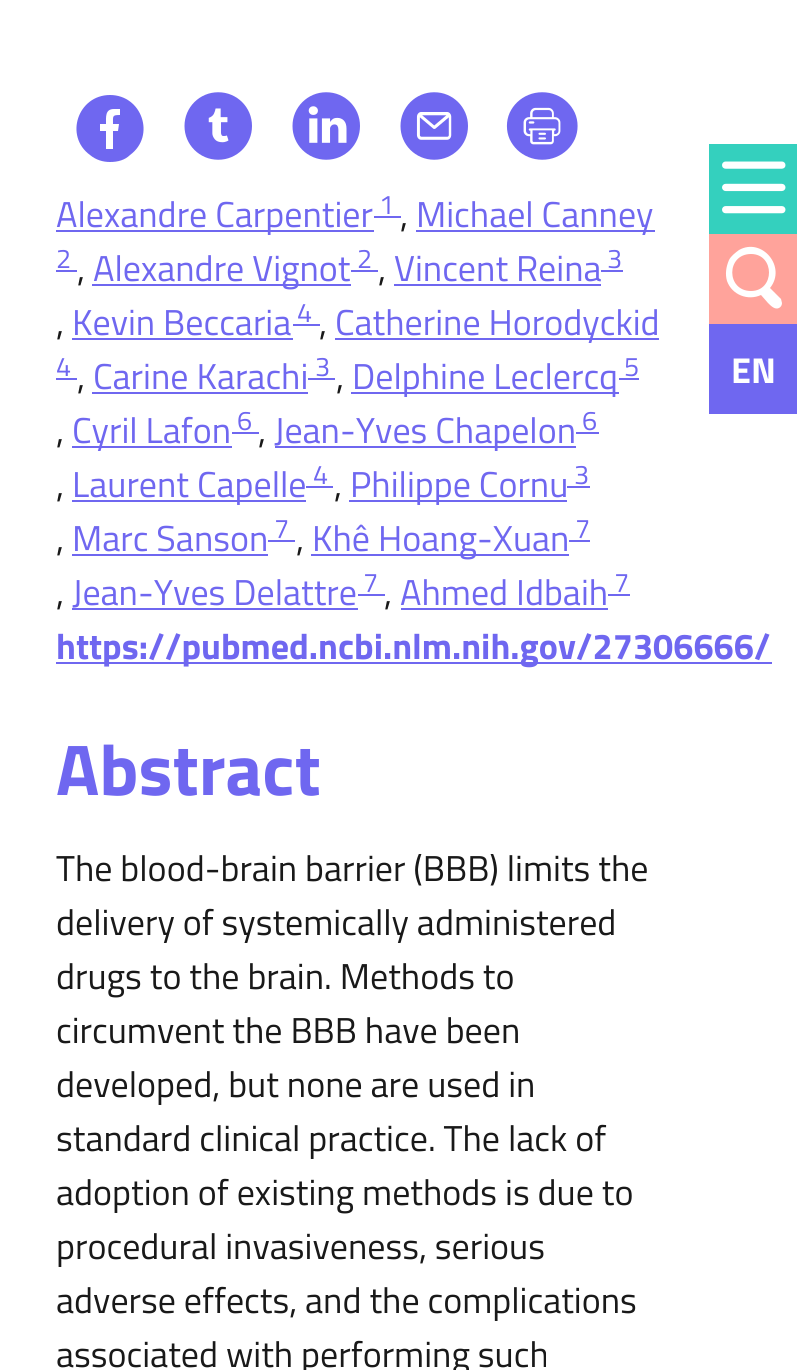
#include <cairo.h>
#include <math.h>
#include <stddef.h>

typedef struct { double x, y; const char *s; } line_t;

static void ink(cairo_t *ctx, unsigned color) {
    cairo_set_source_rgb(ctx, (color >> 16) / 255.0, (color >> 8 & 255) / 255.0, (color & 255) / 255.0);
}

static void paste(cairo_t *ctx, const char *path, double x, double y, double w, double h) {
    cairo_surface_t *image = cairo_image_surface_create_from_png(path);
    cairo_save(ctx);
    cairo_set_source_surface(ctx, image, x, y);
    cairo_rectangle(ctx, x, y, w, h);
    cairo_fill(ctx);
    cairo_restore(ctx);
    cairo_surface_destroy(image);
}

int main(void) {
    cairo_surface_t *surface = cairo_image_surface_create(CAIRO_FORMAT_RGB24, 797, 1370);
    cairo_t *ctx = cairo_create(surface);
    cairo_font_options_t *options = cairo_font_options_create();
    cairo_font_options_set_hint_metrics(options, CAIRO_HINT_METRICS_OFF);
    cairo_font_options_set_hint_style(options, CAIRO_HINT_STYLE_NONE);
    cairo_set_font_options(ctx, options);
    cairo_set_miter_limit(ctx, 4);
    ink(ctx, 0xFFFFFF);
    cairo_paint(ctx);
    ink(ctx, 0x6F67F0);
    cairo_new_path(ctx);
    cairo_move_to(ctx, 110, 95);
    cairo_curve_to(ctx, 78, 95, 64, 136, 90, 155);
    cairo_curve_to(ctx, 96, 160, 103, 162, 110, 162);
    cairo_curve_to(ctx, 118, 162, 125, 160, 130, 155);
    cairo_curve_to(ctx, 156, 136, 142, 95, 110, 95);
    cairo_close_path(ctx);
    cairo_move_to(ctx, 120, 115);
    cairo_curve_to(ctx, 112, 115, 113, 116, 113, 124);
    cairo_line_to(ctx, 119, 124);
    cairo_line_to(ctx, 118, 131);
    cairo_line_to(ctx, 113, 131);
    cairo_line_to(ctx, 113, 149);
    cairo_line_to(ctx, 106, 149);
    cairo_line_to(ctx, 106, 131);
    cairo_line_to(ctx, 100, 131);
    cairo_line_to(ctx, 100, 124);
    cairo_line_to(ctx, 106, 124);
    cairo_curve_to(ctx, 106, 117, 105, 109, 114, 109);
    cairo_line_to(ctx, 120, 109);
    cairo_close_path(ctx);
    cairo_fill(ctx);
    paste(ctx, "media/1.png", 184, 92, 68, 68);
    paste(ctx, "media/2.png", 292, 92, 68, 68);
    paste(ctx, "media/3.png", 400, 92, 68, 68);
    paste(ctx, "media/4.png", 506, 92, 72, 68);
    cairo_rectangle(ctx, 56, 230, 318, 2);
    cairo_fill(ctx);
    cairo_select_font_face(ctx, "Titillium Web", CAIRO_FONT_SLANT_NORMAL, CAIRO_FONT_WEIGHT_NORMAL);
    cairo_set_font_size(ctx, 36);
    cairo_move_to(ctx, 56, 227);
    cairo_show_text(ctx, "Alexandre Carpentier");
    cairo_rectangle(ctx, 374, 216, 27, 2);
    cairo_fill(ctx);
    cairo_set_font_size(ctx, 27);
    cairo_move_to(ctx, 379, 214);
    cairo_show_text(ctx, "1");
    cairo_set_font_size(ctx, 36);
    ink(ctx, 0x191919);
    cairo_move_to(ctx, 400, 227);
    cairo_show_text(ctx, ",");
    ink(ctx, 0x6F67F0);
    cairo_rectangle(ctx, 416, 230, 239, 2);
    cairo_fill(ctx);
    cairo_move_to(ctx, 416, 227);
    cairo_show_text(ctx, "Michael Canney");
    cairo_set_font_size(ctx, 27);
    cairo_move_to(ctx, 56, 268);
    cairo_show_text(ctx, "2");
    cairo_set_font_size(ctx, 36);
    ink(ctx, 0x191919);
    cairo_move_to(ctx, 77, 281);
    cairo_show_text(ctx, ",");
    ink(ctx, 0x6F67F0);
    cairo_rectangle(ctx, 56, 270, 21, 2);
    cairo_fill(ctx);
    cairo_rectangle(ctx, 92, 284, 259, 2);
    cairo_fill(ctx);
    cairo_move_to(ctx, 93, 281);
    cairo_show_text(ctx, "Alexandre Vignot");
    cairo_rectangle(ctx, 351, 270, 27, 2);
    cairo_fill(ctx);
    cairo_set_font_size(ctx, 27);
    cairo_move_to(ctx, 357, 268);
    cairo_show_text(ctx, "2");
    cairo_set_font_size(ctx, 36);
    ink(ctx, 0x191919);
    cairo_move_to(ctx, 378, 281);
    cairo_show_text(ctx, ",");
    ink(ctx, 0x6F67F0);
    cairo_move_to(ctx, 394, 281);
    cairo_show_text(ctx, "Vincent Reina");
    cairo_rectangle(ctx, 394, 284, 207, 2);
    cairo_fill(ctx);
    cairo_rectangle(ctx, 601, 270, 22, 2);
    cairo_fill(ctx);
    cairo_set_font_size(ctx, 27);
    cairo_move_to(ctx, 607, 268);
    cairo_show_text(ctx, "3");
    cairo_set_font_size(ctx, 36);
    ink(ctx, 0x191919);
    cairo_move_to(ctx, 56, 335);
    cairo_show_text(ctx, ",");
    ink(ctx, 0x6F67F0);
    cairo_move_to(ctx, 72, 335);
    cairo_show_text(ctx, "Kevin Beccaria");
    cairo_rectangle(ctx, 72, 338, 221, 2);
    cairo_fill(ctx);
    cairo_rectangle(ctx, 293, 324, 27, 2);
    cairo_fill(ctx);
    cairo_set_font_size(ctx, 27);
    cairo_move_to(ctx, 297, 322);
    cairo_show_text(ctx, "4");
    cairo_set_font_size(ctx, 36);
    ink(ctx, 0x191919);
    cairo_move_to(ctx, 319, 335);
    cairo_show_text(ctx, ",");
    ink(ctx, 0x6F67F0);
    cairo_rectangle(ctx, 335, 338, 324, 2);
    cairo_fill(ctx);
    cairo_move_to(ctx, 335, 335);
    cairo_show_text(ctx, "Catherine Horodyckid");
    cairo_set_font_size(ctx, 27);
    cairo_move_to(ctx, 56, 376);
    cairo_show_text(ctx, "4");
    cairo_set_font_size(ctx, 36);
    ink(ctx, 0x191919);
    cairo_move_to(ctx, 77, 389);
    cairo_show_text(ctx, ",");
    ink(ctx, 0x6F67F0);
    cairo_rectangle(ctx, 56, 378, 21, 2);
    cairo_fill(ctx);
    cairo_move_to(ctx, 93, 389);
    cairo_show_text(ctx, "Carine Karachi");
    cairo_rectangle(ctx, 92, 392, 216, 2);
    cairo_fill(ctx);
    cairo_rectangle(ctx, 308, 378, 27, 2);
    cairo_fill(ctx);
    cairo_set_font_size(ctx, 27);
    cairo_move_to(ctx, 315, 376);
    cairo_show_text(ctx, "3");
    cairo_set_font_size(ctx, 36);
    ink(ctx, 0x191919);
    cairo_move_to(ctx, 336, 389);
    cairo_show_text(ctx, ",");
    ink(ctx, 0x6F67F0);
    cairo_rectangle(ctx, 351, 392, 268, 2);
    cairo_fill(ctx);
    cairo_move_to(ctx, 352, 389);
    cairo_show_text(ctx, "Delphine Leclercq");
    cairo_rectangle(ctx, 619, 378, 20, 2);
    cairo_fill(ctx);
    cairo_set_font_size(ctx, 27);
    cairo_move_to(ctx, 624, 376);
    cairo_show_text(ctx, "5");
    cairo_set_font_size(ctx, 36);
    ink(ctx, 0x191919);
    cairo_move_to(ctx, 56, 443);
    cairo_show_text(ctx, ",");
    ink(ctx, 0x6F67F0);
    cairo_rectangle(ctx, 72, 446, 160, 2);
    cairo_fill(ctx);
    cairo_move_to(ctx, 72, 443);
    cairo_show_text(ctx, "Cyril Lafon");
    cairo_rectangle(ctx, 232, 432, 27, 2);
    cairo_fill(ctx);
    cairo_set_font_size(ctx, 27);
    cairo_move_to(ctx, 237, 430);
    cairo_show_text(ctx, "6");
    cairo_set_font_size(ctx, 36);
    ink(ctx, 0x191919);
    cairo_move_to(ctx, 258, 443);
    cairo_show_text(ctx, ",");
    ink(ctx, 0x6F67F0);
    cairo_rectangle(ctx, 275, 446, 301, 2);
    cairo_fill(ctx);
    cairo_move_to(ctx, 274, 443);
    cairo_show_text(ctx, "Jean-Yves Chapelon");
    cairo_rectangle(ctx, 576, 432, 23, 2);
    cairo_fill(ctx);
    cairo_set_font_size(ctx, 27);
    cairo_move_to(ctx, 582, 430);
    cairo_show_text(ctx, "6");
    cairo_set_font_size(ctx, 36);
    ink(ctx, 0x191919);
    cairo_move_to(ctx, 56, 497);
    cairo_show_text(ctx, ",");
    ink(ctx, 0x6F67F0);
    cairo_rectangle(ctx, 72, 500, 234, 2);
    cairo_fill(ctx);
    cairo_move_to(ctx, 72, 497);
    cairo_show_text(ctx, "Laurent Capelle");
    cairo_rectangle(ctx, 306, 486, 27, 2);
    cairo_fill(ctx);
    cairo_set_font_size(ctx, 27);
    cairo_move_to(ctx, 313, 484);
    cairo_show_text(ctx, "4");
    cairo_set_font_size(ctx, 36);
    ink(ctx, 0x191919);
    cairo_move_to(ctx, 334, 497);
    cairo_show_text(ctx, ",");
    ink(ctx, 0x6F67F0);
    cairo_rectangle(ctx, 349, 500, 218, 2);
    cairo_fill(ctx);
    cairo_move_to(ctx, 350, 497);
    cairo_show_text(ctx, "Philippe Cornu");
    cairo_rectangle(ctx, 567, 486, 23, 2);
    cairo_fill(ctx);
    cairo_set_font_size(ctx, 27);
    cairo_move_to(ctx, 574, 484);
    cairo_show_text(ctx, "3");
    cairo_set_font_size(ctx, 36);
    ink(ctx, 0x191919);
    cairo_move_to(ctx, 56, 551);
    cairo_show_text(ctx, ",");
    ink(ctx, 0x6F67F0);
    cairo_move_to(ctx, 72, 551);
    cairo_show_text(ctx, "Marc Sanson");
    cairo_rectangle(ctx, 72, 554, 196, 2);
    cairo_fill(ctx);
    cairo_rectangle(ctx, 268, 540, 27, 2);
    cairo_fill(ctx);
    cairo_set_font_size(ctx, 27);
    cairo_move_to(ctx, 274, 538);
    cairo_show_text(ctx, "7");
    cairo_set_font_size(ctx, 36);
    ink(ctx, 0x191919);
    cairo_move_to(ctx, 296, 551);
    cairo_show_text(ctx, ",");
    ink(ctx, 0x6F67F0);
    cairo_rectangle(ctx, 311, 554, 258, 2);
    cairo_fill(ctx);
    cairo_move_to(ctx, 312, 551);
    cairo_show_text(ctx, "Khê Hoang-Xuan");
    cairo_rectangle(ctx, 569, 540, 21, 2);
    cairo_fill(ctx);
    cairo_set_font_size(ctx, 27);
    cairo_move_to(ctx, 575, 538);
    cairo_show_text(ctx, "7");
    cairo_set_font_size(ctx, 36);
    ink(ctx, 0x191919);
    cairo_move_to(ctx, 56, 605);
    cairo_show_text(ctx, ",");
    ink(ctx, 0x6F67F0);
    cairo_move_to(ctx, 72, 605);
    cairo_show_text(ctx, "Jean-Yves Delattre");
    cairo_rectangle(ctx, 72, 608, 286, 2);
    cairo_fill(ctx);
    cairo_rectangle(ctx, 358, 594, 27, 2);
    cairo_fill(ctx);
    cairo_set_font_size(ctx, 27);
    cairo_move_to(ctx, 363, 592);
    cairo_show_text(ctx, "7");
    cairo_set_font_size(ctx, 36);
    ink(ctx, 0x191919);
    cairo_move_to(ctx, 384, 605);
    cairo_show_text(ctx, ",");
    ink(ctx, 0x6F67F0);
    cairo_move_to(ctx, 400, 605);
    cairo_show_text(ctx, "Ahmed Idbaih");
    cairo_rectangle(ctx, 401, 608, 207, 2);
    cairo_fill(ctx);
    cairo_rectangle(ctx, 608, 594, 22, 2);
    cairo_fill(ctx);
    cairo_set_font_size(ctx, 27);
    cairo_move_to(ctx, 614, 592);
    cairo_show_text(ctx, "7");
    cairo_rectangle(ctx, 56, 662, 716, 2);
    cairo_fill(ctx);
    cairo_select_font_face(ctx, "Titillium Web", CAIRO_FONT_SLANT_NORMAL, CAIRO_FONT_WEIGHT_BOLD);
    cairo_set_font_size(ctx, 36);
    cairo_move_to(ctx, 56, 659);
    cairo_show_text(ctx, "https://pubmed.ncbi.nlm.nih.gov/27306666/");
    cairo_set_font_size(ctx, 72);
    cairo_move_to(ctx, 56, 795);
    cairo_show_text(ctx, "Abstract");
    cairo_select_font_face(ctx, "Titillium Web", CAIRO_FONT_SLANT_NORMAL, CAIRO_FONT_WEIGHT_NORMAL);
    cairo_set_font_size(ctx, 36);
    ink(ctx, 0x191919);
    {
        static const line_t items[] = {
            {56, 881, "The blood-brain barrier (BBB) limits the"},
            {56, 935, "delivery of systemically administered"},
            {56, 989, "drugs to the brain. Methods to"},
            {56, 1043, "circumvent the BBB have been"},
            {56, 1097, "developed, but none are used in"},
            {56, 1151, "standard clinical practice. The lack of"},
            {56, 1205, "adoption of existing methods is due to"},
            {56, 1259, "procedural invasiveness, serious"},
            {56, 1313, "adverse effects, and the complications"},
            {56, 1367, "associated with performing such"},
        };
        for (size_t i = 0; i < sizeof items / sizeof *items; i++) {
            cairo_move_to(ctx, items[i].x, items[i].y);
            cairo_show_text(ctx, items[i].s);
        }
    }
    ink(ctx, 0x34D0BE);
    cairo_rectangle(ctx, 709, 144, 88, 90);
    cairo_fill(ctx);
    paste(ctx, "media/5.png", 722, 161, 64, 53);
    ink(ctx, 0xFFA39B);
    cairo_rectangle(ctx, 709, 234, 88, 90);
    cairo_fill(ctx);
    ink(ctx, 0xFFFFFF);
    cairo_new_path(ctx);
    cairo_move_to(ctx, 781, 299);
    cairo_line_to(ctx, 770, 288);
    cairo_curve_to(ctx, 787, 267, 762, 237, 739, 250);
    cairo_curve_to(ctx, 735, 253, 731, 256, 729, 260);
    cairo_curve_to(ctx, 726, 267, 725, 274, 727, 281);
    cairo_curve_to(ctx, 732, 295, 748, 301, 761, 295);
    cairo_line_to(ctx, 768, 303);
    cairo_curve_to(ctx, 771, 306, 775, 310, 779, 308);
    cairo_curve_to(ctx, 781, 307, 782, 305, 782, 303);
    cairo_close_path(ctx);
    cairo_move_to(ctx, 751, 291);
    cairo_curve_to(ctx, 726, 291, 726, 254, 751, 254);
    cairo_curve_to(ctx, 775, 254, 775, 291, 751, 291);
    cairo_close_path(ctx);
    cairo_fill(ctx);
    ink(ctx, 0x6F67F0);
    cairo_rectangle(ctx, 709, 324, 88, 90);
    cairo_fill(ctx);
    cairo_select_font_face(ctx, "Titillium Web", CAIRO_FONT_SLANT_NORMAL, CAIRO_FONT_WEIGHT_BOLD);
    ink(ctx, 0xFFFFFF);
    cairo_move_to(ctx, 731, 383);
    cairo_show_text(ctx, "EN");
    cairo_surface_write_to_png(surface, "image.png");
    cairo_font_options_destroy(options);
    cairo_destroy(ctx);
    cairo_surface_destroy(surface);
    return 0;
}
